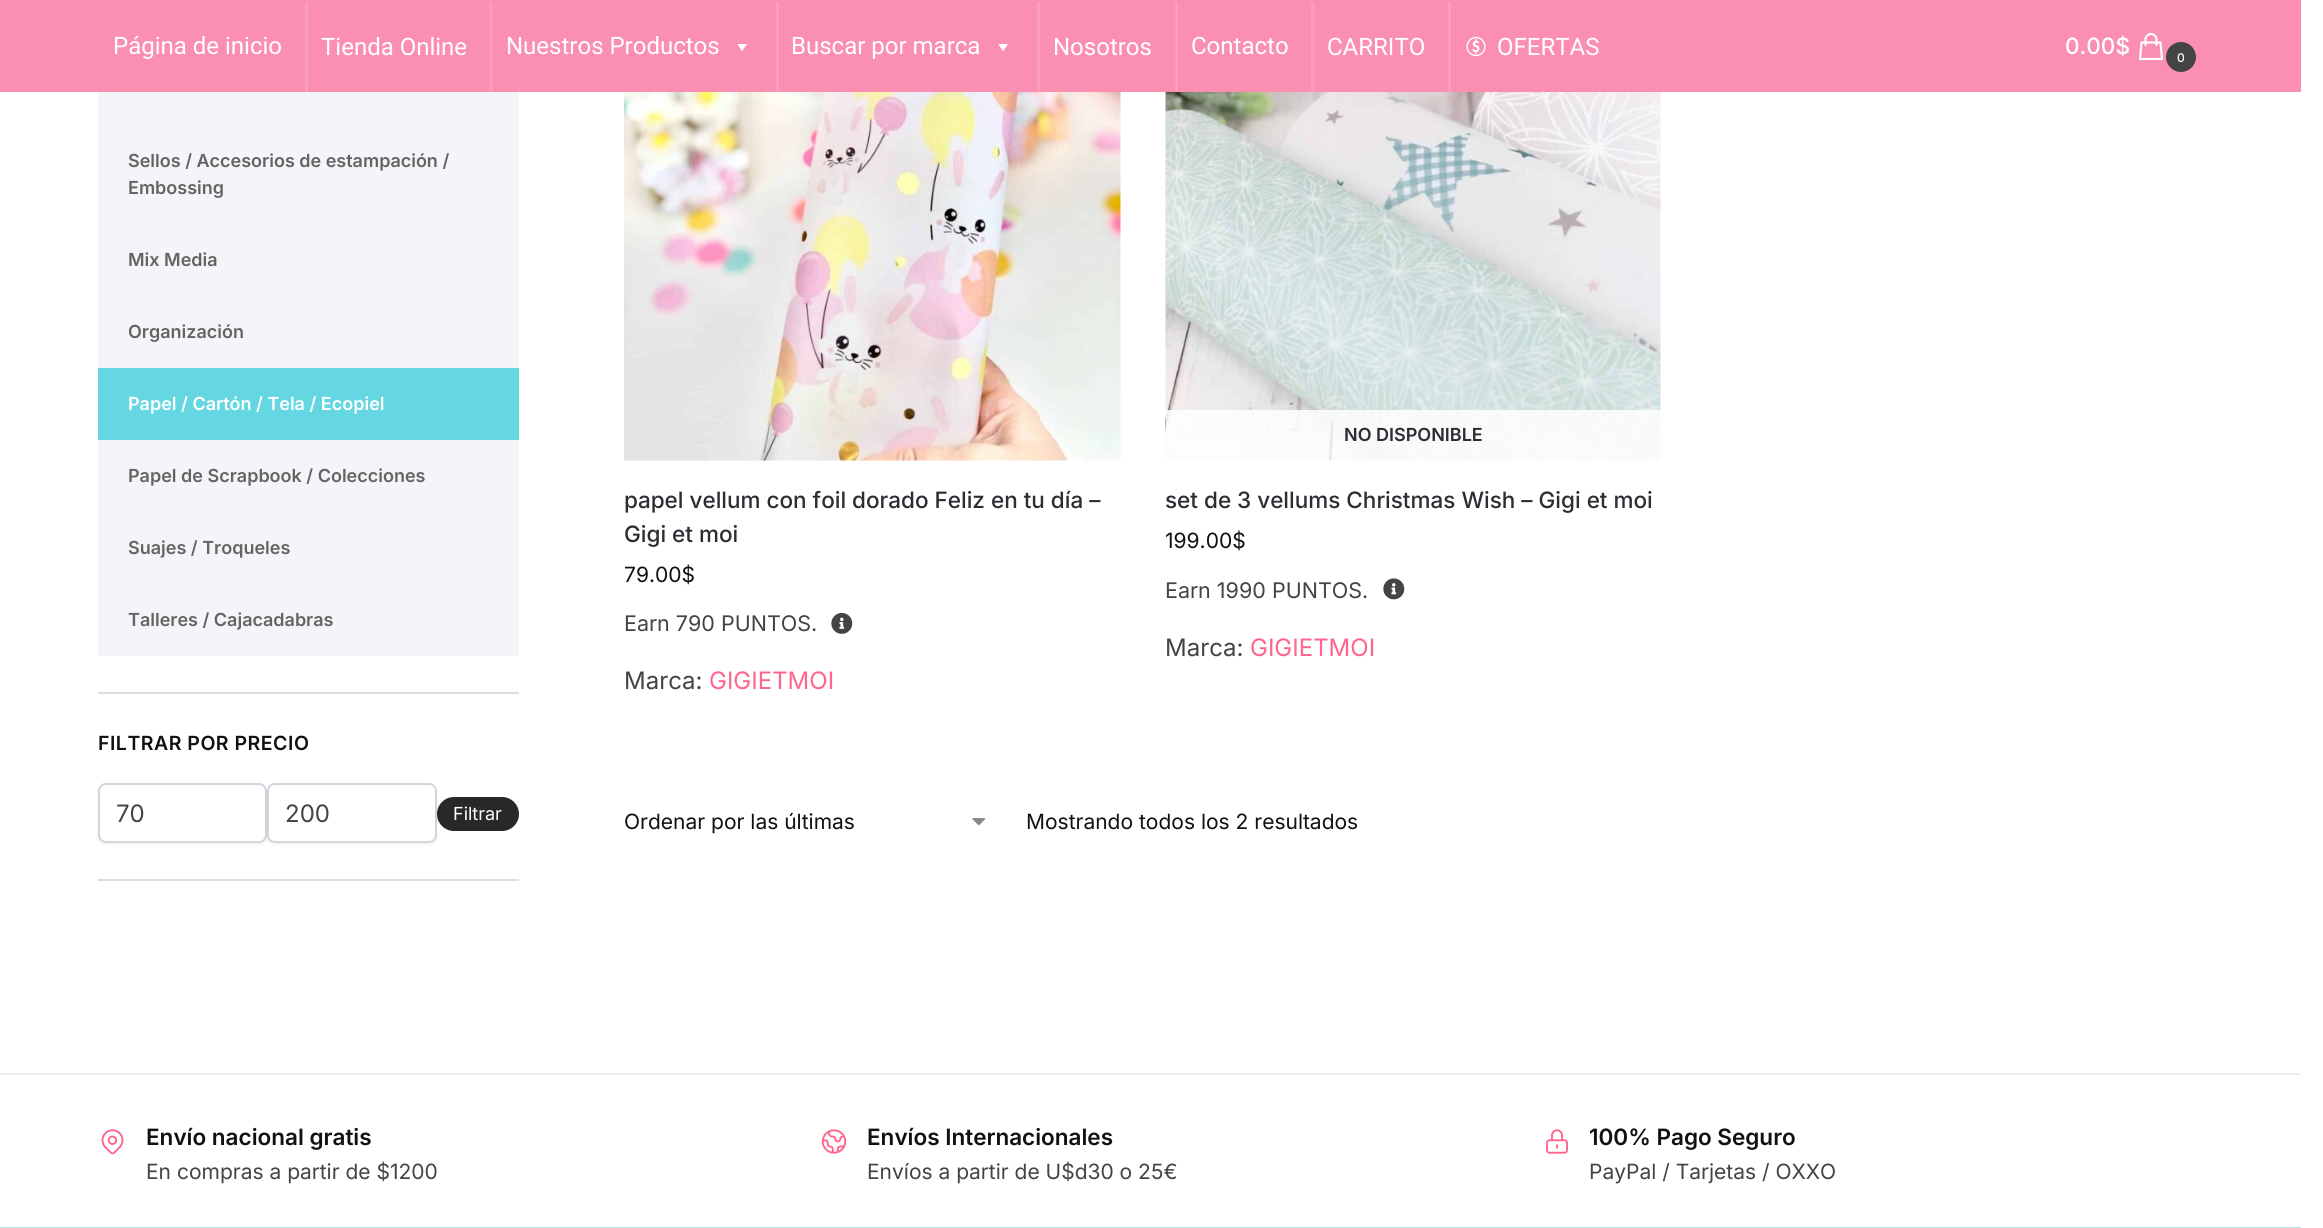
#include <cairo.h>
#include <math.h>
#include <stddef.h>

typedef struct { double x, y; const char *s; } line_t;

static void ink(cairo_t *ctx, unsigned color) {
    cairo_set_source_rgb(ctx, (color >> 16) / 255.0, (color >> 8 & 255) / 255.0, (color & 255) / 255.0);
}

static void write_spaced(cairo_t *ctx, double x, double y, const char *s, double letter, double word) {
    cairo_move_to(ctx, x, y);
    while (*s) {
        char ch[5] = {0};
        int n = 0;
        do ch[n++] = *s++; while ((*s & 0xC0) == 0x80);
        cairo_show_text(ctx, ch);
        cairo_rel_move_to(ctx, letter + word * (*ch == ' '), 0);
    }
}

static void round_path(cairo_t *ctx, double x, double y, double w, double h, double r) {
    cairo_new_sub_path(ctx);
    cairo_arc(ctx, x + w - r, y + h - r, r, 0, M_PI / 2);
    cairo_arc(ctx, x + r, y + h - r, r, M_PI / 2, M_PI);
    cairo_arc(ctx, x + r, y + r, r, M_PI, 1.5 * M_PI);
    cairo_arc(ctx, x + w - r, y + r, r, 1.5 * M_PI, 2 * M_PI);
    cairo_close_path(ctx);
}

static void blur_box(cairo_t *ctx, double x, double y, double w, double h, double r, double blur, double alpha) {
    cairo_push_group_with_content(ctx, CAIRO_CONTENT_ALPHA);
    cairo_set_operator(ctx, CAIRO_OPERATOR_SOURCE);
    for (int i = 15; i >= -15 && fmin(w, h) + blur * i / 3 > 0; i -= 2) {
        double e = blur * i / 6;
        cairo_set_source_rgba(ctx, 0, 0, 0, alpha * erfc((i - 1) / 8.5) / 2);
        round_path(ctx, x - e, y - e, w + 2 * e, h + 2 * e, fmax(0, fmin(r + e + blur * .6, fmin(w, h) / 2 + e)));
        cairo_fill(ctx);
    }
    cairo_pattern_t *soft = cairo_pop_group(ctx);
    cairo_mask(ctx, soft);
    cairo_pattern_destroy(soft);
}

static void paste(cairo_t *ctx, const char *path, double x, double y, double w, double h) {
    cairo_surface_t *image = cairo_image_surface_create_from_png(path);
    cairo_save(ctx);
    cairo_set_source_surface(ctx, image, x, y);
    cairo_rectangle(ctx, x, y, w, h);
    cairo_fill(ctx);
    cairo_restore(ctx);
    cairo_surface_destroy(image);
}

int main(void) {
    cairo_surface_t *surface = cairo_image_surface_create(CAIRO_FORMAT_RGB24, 2323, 1228);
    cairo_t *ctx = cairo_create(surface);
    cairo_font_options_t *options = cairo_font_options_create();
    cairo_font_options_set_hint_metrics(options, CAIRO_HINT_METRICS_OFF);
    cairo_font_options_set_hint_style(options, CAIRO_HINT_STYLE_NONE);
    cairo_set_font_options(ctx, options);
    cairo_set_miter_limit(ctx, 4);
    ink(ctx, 0xFFFFFF);
    cairo_paint(ctx);
    ink(ctx, 0xFA8FB1);
    cairo_rectangle(ctx, 0, 0, 2301, 92);
    cairo_fill(ctx);
    ink(ctx, 0xFB9AB9);
    cairo_rectangle(ctx, 305, 2, 1, 90);
    cairo_fill(ctx);
    cairo_select_font_face(ctx, "Roboto", CAIRO_FONT_SLANT_NORMAL, CAIRO_FONT_WEIGHT_NORMAL);
    cairo_set_font_size(ctx, 24);
    ink(ctx, 0xFFFFFF);
    cairo_move_to(ctx, 113, 54);
    cairo_show_text(ctx, "Página de inicio");
    ink(ctx, 0xFB9AB9);
    cairo_rectangle(ctx, 307, 2, 1, 90);
    cairo_fill(ctx);
    ink(ctx, 0xFBA4C0);
    cairo_rectangle(ctx, 306, 2, 1, 90);
    cairo_fill(ctx);
    ink(ctx, 0xFFFFFF);
    cairo_move_to(ctx, 321, 55);
    cairo_show_text(ctx, "Tienda Online");
    ink(ctx, 0xFB9AB9);
    cairo_rectangle(ctx, 489, 2, 4, 90);
    cairo_fill(ctx);
    ink(ctx, 0xFFFFFF);
    cairo_move_to(ctx, 506, 54);
    cairo_show_text(ctx, "Nuestros Productos");
    cairo_new_path(ctx);
    cairo_move_to(ctx, 747, 44);
    cairo_line_to(ctx, 742, 51.5);
    cairo_line_to(ctx, 737.5, 44);
    cairo_close_path(ctx);
    cairo_fill(ctx);
    ink(ctx, 0xFB9AB9);
    cairo_rectangle(ctx, 777, 2, 2, 90);
    cairo_fill(ctx);
    cairo_set_source_rgba(ctx, 1, 1, 1, 0.1);
    cairo_rectangle(ctx, 776, 2, 2, 90);
    cairo_fill(ctx);
    ink(ctx, 0xFFFFFF);
    cairo_move_to(ctx, 791, 54);
    cairo_show_text(ctx, "Buscar por marca");
    cairo_new_path(ctx);
    cairo_move_to(ctx, 1008, 44);
    cairo_line_to(ctx, 1003, 51.5);
    cairo_line_to(ctx, 998.5, 44);
    cairo_close_path(ctx);
    cairo_fill(ctx);
    ink(ctx, 0xFB9AB9);
    cairo_rectangle(ctx, 1038, 2, 2, 90);
    cairo_fill(ctx);
    cairo_set_source_rgba(ctx, 1, 1, 1, 0.1);
    cairo_rectangle(ctx, 1037, 2, 2, 90);
    cairo_fill(ctx);
    ink(ctx, 0xFFFFFF);
    cairo_move_to(ctx, 1053, 55);
    cairo_show_text(ctx, "Nosotros");
    ink(ctx, 0xFB9AB9);
    cairo_rectangle(ctx, 1176, 2, 2, 90);
    cairo_fill(ctx);
    cairo_set_source_rgba(ctx, 1, 1, 1, 0.1);
    cairo_rectangle(ctx, 1175, 2, 2, 90);
    cairo_fill(ctx);
    ink(ctx, 0xFFFFFF);
    cairo_move_to(ctx, 1191, 54);
    cairo_show_text(ctx, "Contacto");
    ink(ctx, 0xFB9AB9);
    cairo_rectangle(ctx, 1311, 2, 4, 90);
    cairo_fill(ctx);
    ink(ctx, 0xFFFFFF);
    cairo_move_to(ctx, 1327, 55);
    cairo_show_text(ctx, "CARRITO");
    ink(ctx, 0xFB9AB9);
    cairo_rectangle(ctx, 1449, 2, 2, 90);
    cairo_fill(ctx);
    cairo_set_source_rgba(ctx, 1, 1, 1, 0.1);
    cairo_rectangle(ctx, 1448, 2, 2, 90);
    cairo_fill(ctx);
    paste(ctx, "media/1.png", 1466, 36, 20, 21);
    ink(ctx, 0xFFFFFF);
    cairo_move_to(ctx, 1497, 55);
    cairo_show_text(ctx, "OFERTAS");
    cairo_select_font_face(ctx, "Inter Medium", CAIRO_FONT_SLANT_NORMAL, CAIRO_FONT_WEIGHT_NORMAL);
    cairo_set_font_size(ctx, 22.5);
    cairo_move_to(ctx, 2065, 54);
    cairo_show_text(ctx, "0.00$");
    cairo_new_path(ctx);
    cairo_move_to(ctx, 2156.5, 45);
    cairo_line_to(ctx, 2156.5, 39.5);
    cairo_curve_to(ctx, 2156.5, 36.5, 2154, 34, 2151, 34);
    cairo_curve_to(ctx, 2148, 34, 2145.5, 36.5, 2145.5, 39.5);
    cairo_line_to(ctx, 2145.5, 45);
    cairo_move_to(ctx, 2141.5, 42.5);
    cairo_line_to(ctx, 2160.5, 42.5);
    cairo_line_to(ctx, 2162, 59);
    cairo_line_to(ctx, 2140, 59);
    cairo_close_path(ctx);
    cairo_set_line_width(ctx, 2.1);
    cairo_set_line_cap(ctx, CAIRO_LINE_CAP_ROUND);
    cairo_set_line_join(ctx, CAIRO_LINE_JOIN_ROUND);
    cairo_stroke(ctx);
    ink(ctx, 0x444444);
    cairo_arc(ctx, 2181, 57, 14, 0, 2 * M_PI);
    cairo_fill_preserve(ctx);
    cairo_set_line_width(ctx, 2);
    cairo_set_line_cap(ctx, CAIRO_LINE_CAP_BUTT);
    cairo_set_line_join(ctx, CAIRO_LINE_JOIN_MITER);
    cairo_stroke(ctx);
    cairo_set_font_size(ctx, 12);
    ink(ctx, 0xFFFFFF);
    cairo_move_to(ctx, 2177, 62);
    cairo_show_text(ctx, "0");
    ink(ctx, 0xDDDDDD);
    cairo_rectangle(ctx, 98, 692, 421, 2);
    cairo_fill(ctx);
    ink(ctx, 0xF5F5F9);
    cairo_rectangle(ctx, 98, 92, 421, 564);
    cairo_fill(ctx);
    cairo_select_font_face(ctx, "Inter SemiBold", CAIRO_FONT_SLANT_NORMAL, CAIRO_FONT_WEIGHT_NORMAL);
    cairo_set_font_size(ctx, 18);
    ink(ctx, 0x646464);
    {
        static const line_t items[] = {
            {128, 167, "Sellos / Accesorios de estampación /"},
            {128, 194, "Embossing"},
            {128, 266, "Mix Media"},
            {128, 338, "Organización"},
        };
        for (size_t i = 0; i < sizeof items / sizeof *items; i++) {
            cairo_move_to(ctx, items[i].x, items[i].y);
            cairo_show_text(ctx, items[i].s);
        }
    }
    ink(ctx, 0x64D7E2);
    cairo_rectangle(ctx, 98, 368, 421, 72);
    cairo_fill(ctx);
    ink(ctx, 0xFFFFFF);
    cairo_move_to(ctx, 128, 410);
    cairo_show_text(ctx, "Papel / Cartón / Tela / Ecopiel");
    ink(ctx, 0x646464);
    {
        static const line_t items[] = {
            {128, 482, "Papel de Scrapbook / Colecciones"},
            {128, 554, "Suajes / Troqueles"},
            {128, 626, "Talleres / Cajacadabras"},
        };
        for (size_t i = 0; i < sizeof items / sizeof *items; i++) {
            cairo_move_to(ctx, items[i].x, items[i].y);
            cairo_show_text(ctx, items[i].s);
        }
    }
    ink(ctx, 0xDDDDDD);
    cairo_rectangle(ctx, 98, 879, 421, 2);
    cairo_fill(ctx);
    cairo_set_font_size(ctx, 19.5);
    ink(ctx, 0x111111);
    write_spaced(ctx, 98, 750, "FILTRAR POR PRECIO", 0.5, 0);
    cairo_save(ctx);
    cairo_set_fill_rule(ctx, CAIRO_FILL_RULE_EVEN_ODD);
    cairo_new_path(ctx);
    cairo_move_to(ctx, 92, 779);
    cairo_line_to(ctx, 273, 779);
    cairo_line_to(ctx, 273, 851);
    cairo_line_to(ctx, 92, 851);
    cairo_close_path(ctx);
    cairo_move_to(ctx, 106, 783);
    cairo_line_to(ctx, 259, 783);
    cairo_curve_to(ctx, 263.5, 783, 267, 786.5, 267, 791);
    cairo_line_to(ctx, 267, 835);
    cairo_curve_to(ctx, 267, 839.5, 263.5, 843, 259, 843);
    cairo_line_to(ctx, 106, 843);
    cairo_curve_to(ctx, 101.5, 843, 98, 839.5, 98, 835);
    cairo_line_to(ctx, 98, 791);
    cairo_curve_to(ctx, 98, 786.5, 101.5, 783, 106, 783);
    cairo_close_path(ctx);
    cairo_clip(ctx);
    ink(ctx, 0x000000);
    blur_box(ctx, 98, 785, 169, 60, 8, 1.5, 0.05);
    cairo_restore(ctx);
    round_path(ctx, 99, 784, 167, 58, 7);
    ink(ctx, 0xD2D6DC);
    cairo_stroke(ctx);
    cairo_select_font_face(ctx, "Inter", CAIRO_FONT_SLANT_NORMAL, CAIRO_FONT_WEIGHT_NORMAL);
    cairo_set_font_size(ctx, 24);
    ink(ctx, 0x444444);
    cairo_move_to(ctx, 116, 822);
    cairo_show_text(ctx, "70");
    ink(ctx, 0x000000);
    blur_box(ctx, 267, 785, 170, 60, 8, 1.5, 0.05);
    ink(ctx, 0xFFFFFF);
    round_path(ctx, 268, 784, 168, 58, 7);
    cairo_fill_preserve(ctx);
    ink(ctx, 0xD2D6DC);
    cairo_stroke(ctx);
    ink(ctx, 0x444444);
    cairo_move_to(ctx, 285, 822);
    cairo_show_text(ctx, "200");
    ink(ctx, 0x282828);
    round_path(ctx, 437, 797, 82, 34, 17);
    cairo_fill(ctx);
    cairo_set_font_size(ctx, 18);
    ink(ctx, 0xFFFFFF);
    cairo_move_to(ctx, 453, 820);
    cairo_show_text(ctx, "Filtrar");
    paste(ctx, "media/2.png", 624, 92, 497, 369);
    cairo_select_font_face(ctx, "Inter Medium", CAIRO_FONT_SLANT_NORMAL, CAIRO_FONT_WEIGHT_NORMAL);
    cairo_set_font_size(ctx, 22.5);
    ink(ctx, 0x2C2D33);
    cairo_move_to(ctx, 624, 508);
    cairo_show_text(ctx, "papel vellum con foil dorado Feliz en tu día –");
    cairo_move_to(ctx, 624, 542);
    cairo_show_text(ctx, "Gigi et moi");
    cairo_select_font_face(ctx, "Inter", CAIRO_FONT_SLANT_NORMAL, CAIRO_FONT_WEIGHT_NORMAL);
    cairo_set_font_size(ctx, 21);
    ink(ctx, 0x111111);
    cairo_move_to(ctx, 624, 582);
    cairo_show_text(ctx, "79.00$");
    cairo_set_font_size(ctx, 21.5);
    ink(ctx, 0x444444);
    cairo_move_to(ctx, 624, 631);
    cairo_show_text(ctx, "Earn 790");
    cairo_move_to(ctx, 721, 631);
    cairo_show_text(ctx, "PUNTOS.");
    paste(ctx, "media/3.png", 831, 612, 22, 22);
    cairo_set_font_size(ctx, 24);
    cairo_move_to(ctx, 624, 689);
    cairo_show_text(ctx, "Marca:");
    ink(ctx, 0xFF658C);
    cairo_move_to(ctx, 709, 689);
    cairo_show_text(ctx, "GIGIETMOI");
    paste(ctx, "media/4.png", 1165, 92, 496, 369);
    cairo_set_source_rgba(ctx, 1, 1, 1, 0.85);
    cairo_rectangle(ctx, 1166, 410, 495, 51);
    cairo_fill(ctx);
    cairo_select_font_face(ctx, "Inter SemiBold", CAIRO_FONT_SLANT_NORMAL, CAIRO_FONT_WEIGHT_NORMAL);
    cairo_set_font_size(ctx, 18);
    ink(ctx, 0x2C2D33);
    cairo_move_to(ctx, 1344, 441);
    cairo_show_text(ctx, "NO DISPONIBLE");
    cairo_select_font_face(ctx, "Inter Medium", CAIRO_FONT_SLANT_NORMAL, CAIRO_FONT_WEIGHT_NORMAL);
    cairo_set_font_size(ctx, 22.5);
    cairo_move_to(ctx, 1165, 508);
    cairo_show_text(ctx, "set de 3 vellums Christmas Wish – Gigi et moi");
    cairo_select_font_face(ctx, "Inter", CAIRO_FONT_SLANT_NORMAL, CAIRO_FONT_WEIGHT_NORMAL);
    cairo_set_font_size(ctx, 21);
    ink(ctx, 0x111111);
    cairo_move_to(ctx, 1165, 548);
    cairo_show_text(ctx, "199.00$");
    cairo_set_font_size(ctx, 21.5);
    ink(ctx, 0x444444);
    cairo_move_to(ctx, 1165, 598);
    cairo_show_text(ctx, "Earn 1990");
    cairo_move_to(ctx, 1272, 598);
    cairo_show_text(ctx, "PUNTOS.");
    paste(ctx, "media/5.png", 1383, 578, 22, 22);
    cairo_set_font_size(ctx, 24);
    cairo_move_to(ctx, 1165, 656);
    cairo_show_text(ctx, "Marca:");
    ink(ctx, 0xFF658C);
    cairo_move_to(ctx, 1250, 656);
    cairo_show_text(ctx, "GIGIETMOI");
    paste(ctx, "media/6.png", 972, 818, 14, 8);
    cairo_set_font_size(ctx, 21);
    ink(ctx, 0x111111);
    cairo_move_to(ctx, 624, 829);
    cairo_show_text(ctx, "Ordenar por las últimas");
    cairo_move_to(ctx, 1026, 829);
    cairo_show_text(ctx, "Mostrando todos los 2 resultados");
    ink(ctx, 0xEEEEEE);
    cairo_rectangle(ctx, 0, 1073, 2301, 2);
    cairo_fill(ctx);
    cairo_select_font_face(ctx, "Inter SemiBold", CAIRO_FONT_SLANT_NORMAL, CAIRO_FONT_WEIGHT_NORMAL);
    cairo_set_font_size(ctx, 22.5);
    ink(ctx, 0x111111);
    cairo_move_to(ctx, 146, 1145);
    cairo_show_text(ctx, "Envío nacional gratis");
    paste(ctx, "media/7.png", 101, 1129, 23, 26);
    cairo_select_font_face(ctx, "Inter", CAIRO_FONT_SLANT_NORMAL, CAIRO_FONT_WEIGHT_NORMAL);
    cairo_set_font_size(ctx, 21);
    ink(ctx, 0x444444);
    cairo_move_to(ctx, 146, 1179);
    cairo_show_text(ctx, "En compras a partir de $1200");
    cairo_select_font_face(ctx, "Inter SemiBold", CAIRO_FONT_SLANT_NORMAL, CAIRO_FONT_WEIGHT_NORMAL);
    cairo_set_font_size(ctx, 22.5);
    ink(ctx, 0x111111);
    cairo_move_to(ctx, 867, 1145);
    cairo_show_text(ctx, "Envíos Internacionales");
    paste(ctx, "media/8.png", 821, 1129, 26, 25);
    cairo_select_font_face(ctx, "Inter", CAIRO_FONT_SLANT_NORMAL, CAIRO_FONT_WEIGHT_NORMAL);
    cairo_set_font_size(ctx, 21);
    ink(ctx, 0x444444);
    cairo_move_to(ctx, 867, 1179);
    cairo_show_text(ctx, "Envíos a partir de U$d30 o 25€");
    cairo_select_font_face(ctx, "Inter SemiBold", CAIRO_FONT_SLANT_NORMAL, CAIRO_FONT_WEIGHT_NORMAL);
    cairo_set_font_size(ctx, 22.5);
    ink(ctx, 0x111111);
    cairo_move_to(ctx, 1589, 1145);
    cairo_show_text(ctx, "100% Pago Seguro");
    paste(ctx, "media/9.png", 1546, 1129, 22, 25);
    cairo_select_font_face(ctx, "Inter", CAIRO_FONT_SLANT_NORMAL, CAIRO_FONT_WEIGHT_NORMAL);
    cairo_set_font_size(ctx, 21);
    ink(ctx, 0x444444);
    cairo_move_to(ctx, 1589, 1179);
    cairo_show_text(ctx, "PayPal / Tarjetas / OXXO");
    ink(ctx, 0xB4E2D8);
    cairo_rectangle(ctx, 0, 1227, 2301, 1);
    cairo_fill(ctx);
    cairo_surface_write_to_png(surface, "image.png");
    cairo_font_options_destroy(options);
    cairo_destroy(ctx);
    cairo_surface_destroy(surface);
    return 0;
}
